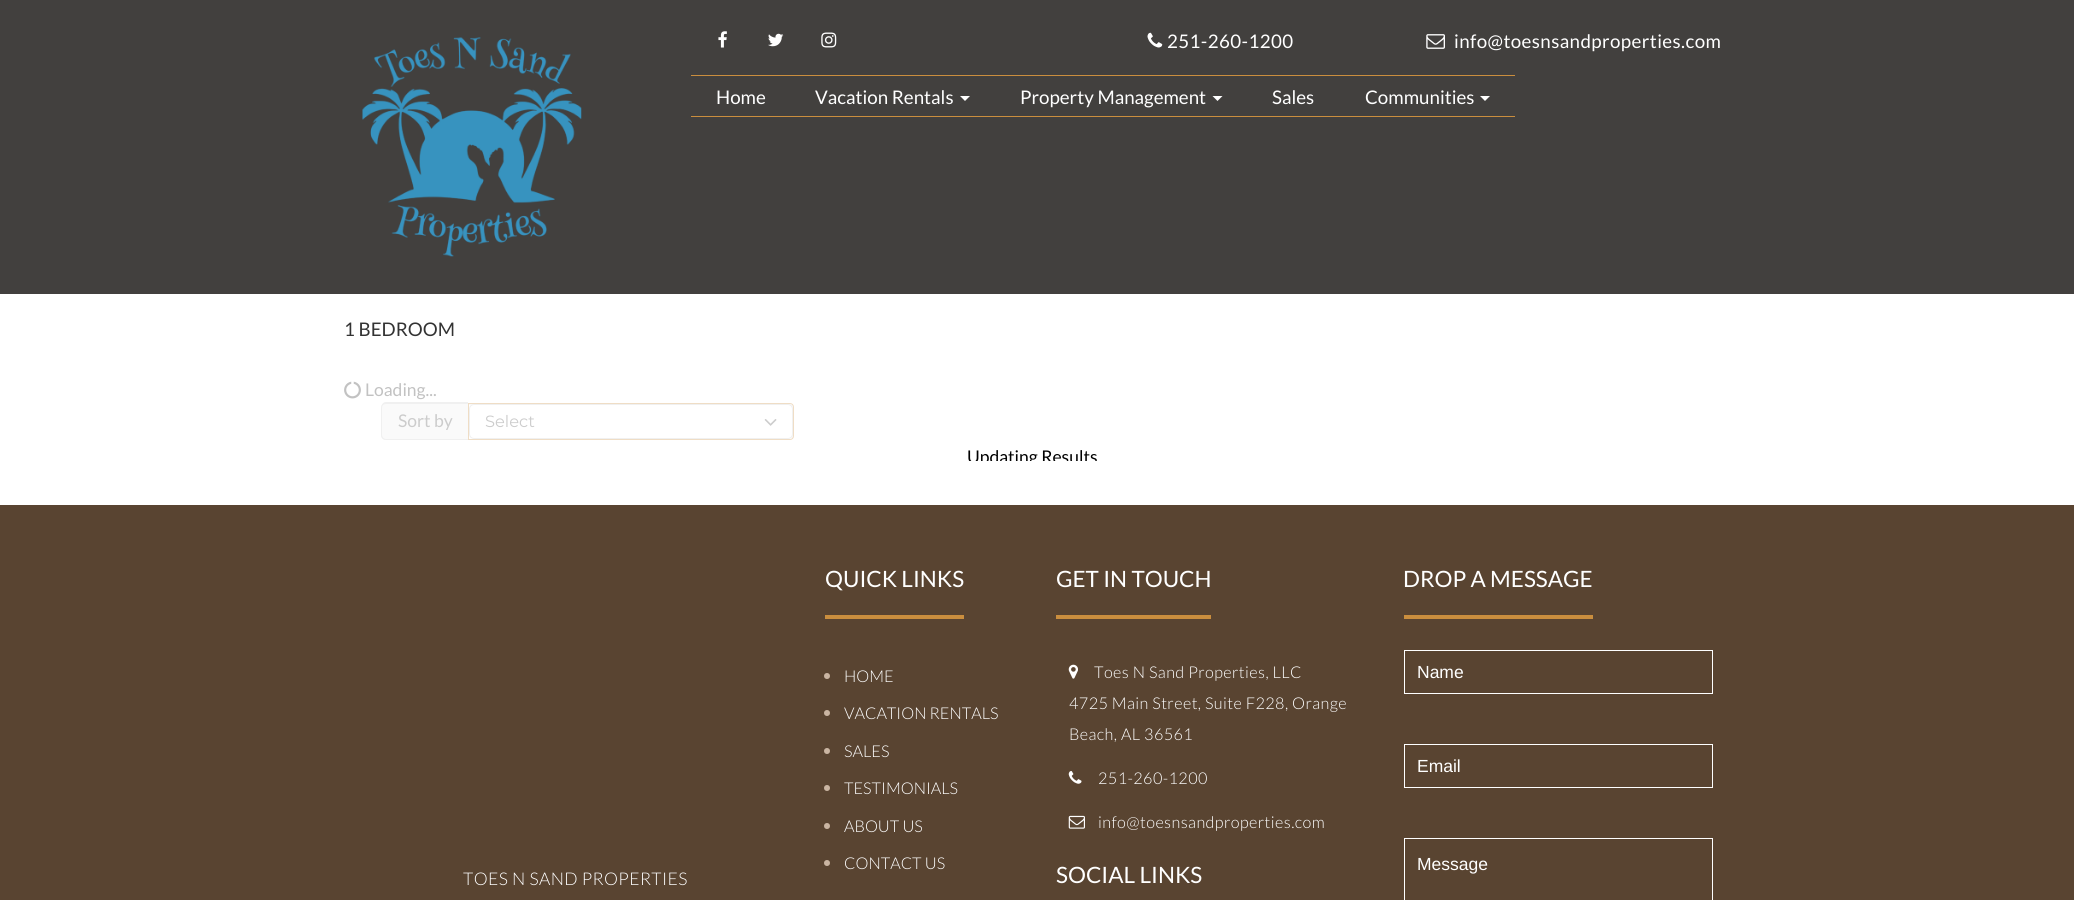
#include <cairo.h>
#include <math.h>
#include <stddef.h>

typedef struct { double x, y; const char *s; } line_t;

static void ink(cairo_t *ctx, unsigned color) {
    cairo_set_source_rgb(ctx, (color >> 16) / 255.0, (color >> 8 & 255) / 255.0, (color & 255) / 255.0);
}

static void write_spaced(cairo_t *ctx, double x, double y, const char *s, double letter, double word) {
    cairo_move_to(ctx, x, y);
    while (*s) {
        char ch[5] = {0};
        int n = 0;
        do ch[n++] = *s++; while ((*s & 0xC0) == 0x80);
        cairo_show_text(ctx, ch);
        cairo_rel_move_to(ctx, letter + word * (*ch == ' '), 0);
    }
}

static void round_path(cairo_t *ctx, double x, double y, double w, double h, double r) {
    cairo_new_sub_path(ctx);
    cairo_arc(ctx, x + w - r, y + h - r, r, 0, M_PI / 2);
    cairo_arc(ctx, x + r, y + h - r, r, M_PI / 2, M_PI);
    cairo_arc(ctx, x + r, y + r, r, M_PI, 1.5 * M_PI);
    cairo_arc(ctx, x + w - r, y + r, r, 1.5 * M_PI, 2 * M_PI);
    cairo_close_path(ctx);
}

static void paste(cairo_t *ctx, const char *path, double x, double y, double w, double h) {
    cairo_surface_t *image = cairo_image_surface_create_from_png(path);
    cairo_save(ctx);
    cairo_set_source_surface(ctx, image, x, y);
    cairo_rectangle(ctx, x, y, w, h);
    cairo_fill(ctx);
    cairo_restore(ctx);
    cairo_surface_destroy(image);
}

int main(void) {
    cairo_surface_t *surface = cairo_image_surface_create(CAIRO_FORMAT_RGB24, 2074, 900);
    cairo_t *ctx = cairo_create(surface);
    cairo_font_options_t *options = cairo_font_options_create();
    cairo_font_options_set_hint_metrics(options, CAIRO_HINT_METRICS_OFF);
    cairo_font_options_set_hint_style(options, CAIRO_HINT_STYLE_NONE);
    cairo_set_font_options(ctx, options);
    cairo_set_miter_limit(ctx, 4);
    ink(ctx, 0xFFFFFF);
    cairo_paint(ctx);
    ink(ctx, 0x42403E);
    cairo_rectangle(ctx, 0, 0, 2074, 294);
    cairo_fill(ctx);
    paste(ctx, "media/1.png", 362, 37, 220, 220);
    paste(ctx, "media/2.png", 718, 31, 9, 17);
    paste(ctx, "media/3.png", 768, 33, 16, 14);
    paste(ctx, "media/4.png", 821, 32, 16, 16);
    paste(ctx, "media/5.png", 1147, 32, 16, 16);
    cairo_select_font_face(ctx, "Lato", CAIRO_FONT_SLANT_NORMAL, CAIRO_FONT_WEIGHT_NORMAL);
    cairo_set_font_size(ctx, 18.75);
    ink(ctx, 0xFFFFFF);
    write_spaced(ctx, 1167, 48, "251-260-1200", 0.4, 0);
    paste(ctx, "media/6.png", 1426, 34, 19, 15);
    write_spaced(ctx, 1454, 48, "info@toesnsandproperties.com", 0.4, 0);
    ink(ctx, 0xCA8E3E);
    cairo_rectangle(ctx, 691, 75, 824, 1);
    cairo_fill(ctx);
    cairo_rectangle(ctx, 691, 116, 824, 1);
    cairo_fill(ctx);
    ink(ctx, 0xFFFFFF);
    cairo_move_to(ctx, 716, 104);
    cairo_show_text(ctx, "Home");
    cairo_move_to(ctx, 815, 104);
    cairo_show_text(ctx, "Vacation Rentals");
    cairo_new_path(ctx);
    cairo_move_to(ctx, 960, 96);
    cairo_line_to(ctx, 970, 96);
    cairo_line_to(ctx, 965, 101);
    cairo_close_path(ctx);
    cairo_fill(ctx);
    cairo_move_to(ctx, 1020, 104);
    cairo_show_text(ctx, "Property Management");
    cairo_new_path(ctx);
    cairo_move_to(ctx, 1212.5, 96);
    cairo_line_to(ctx, 1222.5, 96);
    cairo_line_to(ctx, 1217.5, 101);
    cairo_close_path(ctx);
    cairo_fill(ctx);
    cairo_move_to(ctx, 1272, 104);
    cairo_show_text(ctx, "Sales");
    cairo_move_to(ctx, 1365, 104);
    cairo_show_text(ctx, "Communities");
    cairo_new_path(ctx);
    cairo_move_to(ctx, 1480, 96);
    cairo_line_to(ctx, 1490, 96);
    cairo_line_to(ctx, 1485, 101);
    cairo_close_path(ctx);
    cairo_fill(ctx);
    ink(ctx, 0x333333);
    cairo_move_to(ctx, 344, 336);
    cairo_show_text(ctx, "1 BEDROOM");
    paste(ctx, "media/7.png", 344, 381, 17, 18);
    cairo_set_font_size(ctx, 17.5);
    ink(ctx, 0xC2C2C2);
    cairo_move_to(ctx, 365, 396);
    cairo_show_text(ctx, "Loading...");
    ink(ctx, 0xFAFAFA);
    cairo_new_path(ctx);
    cairo_move_to(ctx, 386, 403);
    cairo_line_to(ctx, 468, 403);
    cairo_line_to(ctx, 468, 440);
    cairo_line_to(ctx, 386, 440);
    cairo_curve_to(ctx, 383, 440, 381, 438, 381, 435);
    cairo_line_to(ctx, 381, 408);
    cairo_curve_to(ctx, 381, 405, 383, 403, 386, 403);
    cairo_close_path(ctx);
    cairo_fill(ctx);
    ink(ctx, 0xF0F0F0);
    cairo_set_fill_rule(ctx, CAIRO_FILL_RULE_EVEN_ODD);
    cairo_new_path(ctx);
    cairo_move_to(ctx, 386, 402);
    cairo_line_to(ctx, 468, 402);
    cairo_line_to(ctx, 468, 440);
    cairo_line_to(ctx, 386, 440);
    cairo_curve_to(ctx, 383, 440, 381, 438, 381, 435);
    cairo_line_to(ctx, 381, 408);
    cairo_curve_to(ctx, 381, 405, 383, 402, 386, 402);
    cairo_close_path(ctx);
    cairo_move_to(ctx, 386, 404);
    cairo_line_to(ctx, 468, 404);
    cairo_line_to(ctx, 468, 439);
    cairo_line_to(ctx, 386, 439);
    cairo_curve_to(ctx, 384, 439, 382, 437, 382, 435);
    cairo_line_to(ctx, 382, 408);
    cairo_curve_to(ctx, 382, 405, 384, 404, 386, 404);
    cairo_close_path(ctx);
    cairo_fill(ctx);
    ink(ctx, 0xCCCCCC);
    cairo_move_to(ctx, 398, 427);
    cairo_show_text(ctx, "Sort by");
    ink(ctx, 0xF9F9F9);
    cairo_set_fill_rule(ctx, CAIRO_FILL_RULE_WINDING);
    cairo_new_path(ctx);
    cairo_move_to(ctx, 469, 405);
    cairo_line_to(ctx, 790, 405);
    cairo_curve_to(ctx, 794, 405, 792, 417, 792, 418);
    cairo_line_to(ctx, 792, 439);
    cairo_curve_to(ctx, 793, 438, 793, 437, 793, 436);
    cairo_line_to(ctx, 793, 406);
    cairo_curve_to(ctx, 793, 405, 792, 404, 790, 404);
    cairo_line_to(ctx, 469, 404);
    cairo_close_path(ctx);
    cairo_fill(ctx);
    cairo_new_path(ctx);
    cairo_move_to(ctx, 468.5, 403.5);
    cairo_line_to(ctx, 790, 403.5);
    cairo_curve_to(ctx, 792, 403.5, 793.5, 405, 793.5, 407);
    cairo_line_to(ctx, 793.5, 436);
    cairo_curve_to(ctx, 793.5, 438, 792, 439.5, 790, 439.5);
    cairo_line_to(ctx, 468.5, 439.5);
    cairo_close_path(ctx);
    ink(ctx, 0xEFDDC5);
    cairo_set_line_width(ctx, 1);
    cairo_stroke(ctx);
    round_path(ctx, 469.5, 404.5, 323, 34, 4.5);
    ink(ctx, 0xF0F0F0);
    cairo_stroke(ctx);
    cairo_select_font_face(ctx, "Montserrat", CAIRO_FONT_SLANT_NORMAL, CAIRO_FONT_WEIGHT_NORMAL);
    cairo_set_font_size(ctx, 16.25);
    ink(ctx, 0xCCCCCC);
    cairo_move_to(ctx, 485, 427);
    cairo_show_text(ctx, "Select");
    paste(ctx, "media/8.png", 764, 419, 13, 7);
    cairo_save(ctx);
    cairo_rectangle(ctx, 344, 378, 1387, 83);
    cairo_clip(ctx);
    cairo_select_font_face(ctx, "Lato", CAIRO_FONT_SLANT_NORMAL, CAIRO_FONT_WEIGHT_NORMAL);
    cairo_set_font_size(ctx, 17.5);
    ink(ctx, 0x000000);
    cairo_move_to(ctx, 967, 463);
    cairo_show_text(ctx, "Updating Results");
    cairo_restore(ctx);
    ink(ctx, 0x594431);
    cairo_rectangle(ctx, 0, 505, 2074, 395);
    cairo_fill(ctx);
    ink(ctx, 0xCA8E3E);
    cairo_rectangle(ctx, 825, 615, 139, 4);
    cairo_fill(ctx);
    cairo_select_font_face(ctx, "Lato", CAIRO_FONT_SLANT_NORMAL, CAIRO_FONT_WEIGHT_NORMAL);
    cairo_set_font_size(ctx, 22.5);
    ink(ctx, 0xFFFFFF);
    cairo_move_to(ctx, 825, 587);
    cairo_show_text(ctx, "QUICK LINKS");
    ink(ctx, 0xCAB5A2);
    cairo_new_path(ctx);
    cairo_arc(ctx, 827, 676, 3, 0, 2 * M_PI);
    cairo_fill(ctx);
    cairo_select_font_face(ctx, "Lato Light", CAIRO_FONT_SLANT_NORMAL, CAIRO_FONT_WEIGHT_NORMAL);
    cairo_set_font_size(ctx, 16.25);
    ink(ctx, 0xFFFFFF);
    cairo_move_to(ctx, 844, 682);
    cairo_show_text(ctx, "HOME");
    ink(ctx, 0xCAB5A2);
    cairo_new_path(ctx);
    cairo_arc(ctx, 827, 713, 3, 0, 2 * M_PI);
    cairo_fill(ctx);
    ink(ctx, 0xFFFFFF);
    cairo_move_to(ctx, 844, 719);
    cairo_show_text(ctx, "VACATION RENTALS");
    ink(ctx, 0xCAB5A2);
    cairo_new_path(ctx);
    cairo_arc(ctx, 827, 751, 3, 0, 2 * M_PI);
    cairo_fill(ctx);
    ink(ctx, 0xFFFFFF);
    cairo_move_to(ctx, 844, 757);
    cairo_show_text(ctx, "SALES");
    ink(ctx, 0xCAB5A2);
    cairo_new_path(ctx);
    cairo_arc(ctx, 827, 788, 3, 0, 2 * M_PI);
    cairo_fill(ctx);
    ink(ctx, 0xFFFFFF);
    cairo_move_to(ctx, 844, 794);
    cairo_show_text(ctx, "TESTIMONIALS");
    ink(ctx, 0xCAB5A2);
    cairo_new_path(ctx);
    cairo_arc(ctx, 827, 826, 3, 0, 2 * M_PI);
    cairo_fill(ctx);
    ink(ctx, 0xFFFFFF);
    cairo_move_to(ctx, 844, 832);
    cairo_show_text(ctx, "ABOUT US");
    ink(ctx, 0xCAB5A2);
    cairo_new_path(ctx);
    cairo_arc(ctx, 827, 863, 3, 0, 2 * M_PI);
    cairo_fill(ctx);
    ink(ctx, 0xFFFFFF);
    cairo_move_to(ctx, 844, 869);
    cairo_show_text(ctx, "CONTACT US");
    ink(ctx, 0xCA8E3E);
    cairo_rectangle(ctx, 1056, 615, 155, 4);
    cairo_fill(ctx);
    cairo_select_font_face(ctx, "Lato", CAIRO_FONT_SLANT_NORMAL, CAIRO_FONT_WEIGHT_NORMAL);
    cairo_set_font_size(ctx, 22.5);
    ink(ctx, 0xFFFFFF);
    cairo_move_to(ctx, 1056, 587);
    cairo_show_text(ctx, "GET IN TOUCH");
    paste(ctx, "media/9.png", 1068, 664, 10, 15);
    cairo_select_font_face(ctx, "Lato Light", CAIRO_FONT_SLANT_NORMAL, CAIRO_FONT_WEIGHT_NORMAL);
    cairo_set_font_size(ctx, 16.25);
    {
        static const line_t items[] = {
            {1094, 678, "Toes N Sand Properties, LLC"},
            {1069, 709, "4725 Main Street, Suite F228, Orange"},
            {1069, 740, "Beach, AL 36561"},
        };
        for (size_t i = 0; i < sizeof items / sizeof *items; i++) {
            write_spaced(ctx, items[i].x, items[i].y, items[i].s, 0.4, 0);
        }
    }
    paste(ctx, "media/10.png", 1068, 771, 14, 13);
    write_spaced(ctx, 1098, 784, "251-260-1200", 0.4, 0);
    paste(ctx, "media/11.png", 1068, 815, 17, 14);
    write_spaced(ctx, 1098, 828, "info@toesnsandproperties.com", 0.4, 0);
    cairo_select_font_face(ctx, "Lato", CAIRO_FONT_SLANT_NORMAL, CAIRO_FONT_WEIGHT_NORMAL);
    cairo_set_font_size(ctx, 22.5);
    cairo_move_to(ctx, 1056, 883);
    cairo_show_text(ctx, "SOCIAL LINKS");
    ink(ctx, 0xCA8E3E);
    cairo_rectangle(ctx, 1404, 615, 189, 4);
    cairo_fill(ctx);
    ink(ctx, 0xFFFFFF);
    cairo_move_to(ctx, 1403, 587);
    cairo_show_text(ctx, "DROP A MESSAGE");
    cairo_rectangle(ctx, 1404.5, 650.5, 308, 43);
    cairo_stroke(ctx);
    cairo_select_font_face(ctx, "Liberation Sans", CAIRO_FONT_SLANT_NORMAL, CAIRO_FONT_WEIGHT_NORMAL);
    cairo_set_font_size(ctx, 17.5);
    cairo_move_to(ctx, 1417, 678);
    cairo_show_text(ctx, "Name");
    cairo_rectangle(ctx, 1404.5, 744.5, 308, 43);
    cairo_stroke(ctx);
    cairo_move_to(ctx, 1417, 772);
    cairo_show_text(ctx, "Email");
    cairo_rectangle(ctx, 1404.5, 838.5, 308, 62);
    cairo_stroke(ctx);
    cairo_move_to(ctx, 1417, 870);
    cairo_show_text(ctx, "Message");
    cairo_select_font_face(ctx, "Lato Light", CAIRO_FONT_SLANT_NORMAL, CAIRO_FONT_WEIGHT_NORMAL);
    write_spaced(ctx, 463, 885, "TOES N SAND PROPERTIES", 0.4, 0);
    cairo_surface_write_to_png(surface, "image.png");
    cairo_font_options_destroy(options);
    cairo_destroy(ctx);
    cairo_surface_destroy(surface);
    return 0;
}
